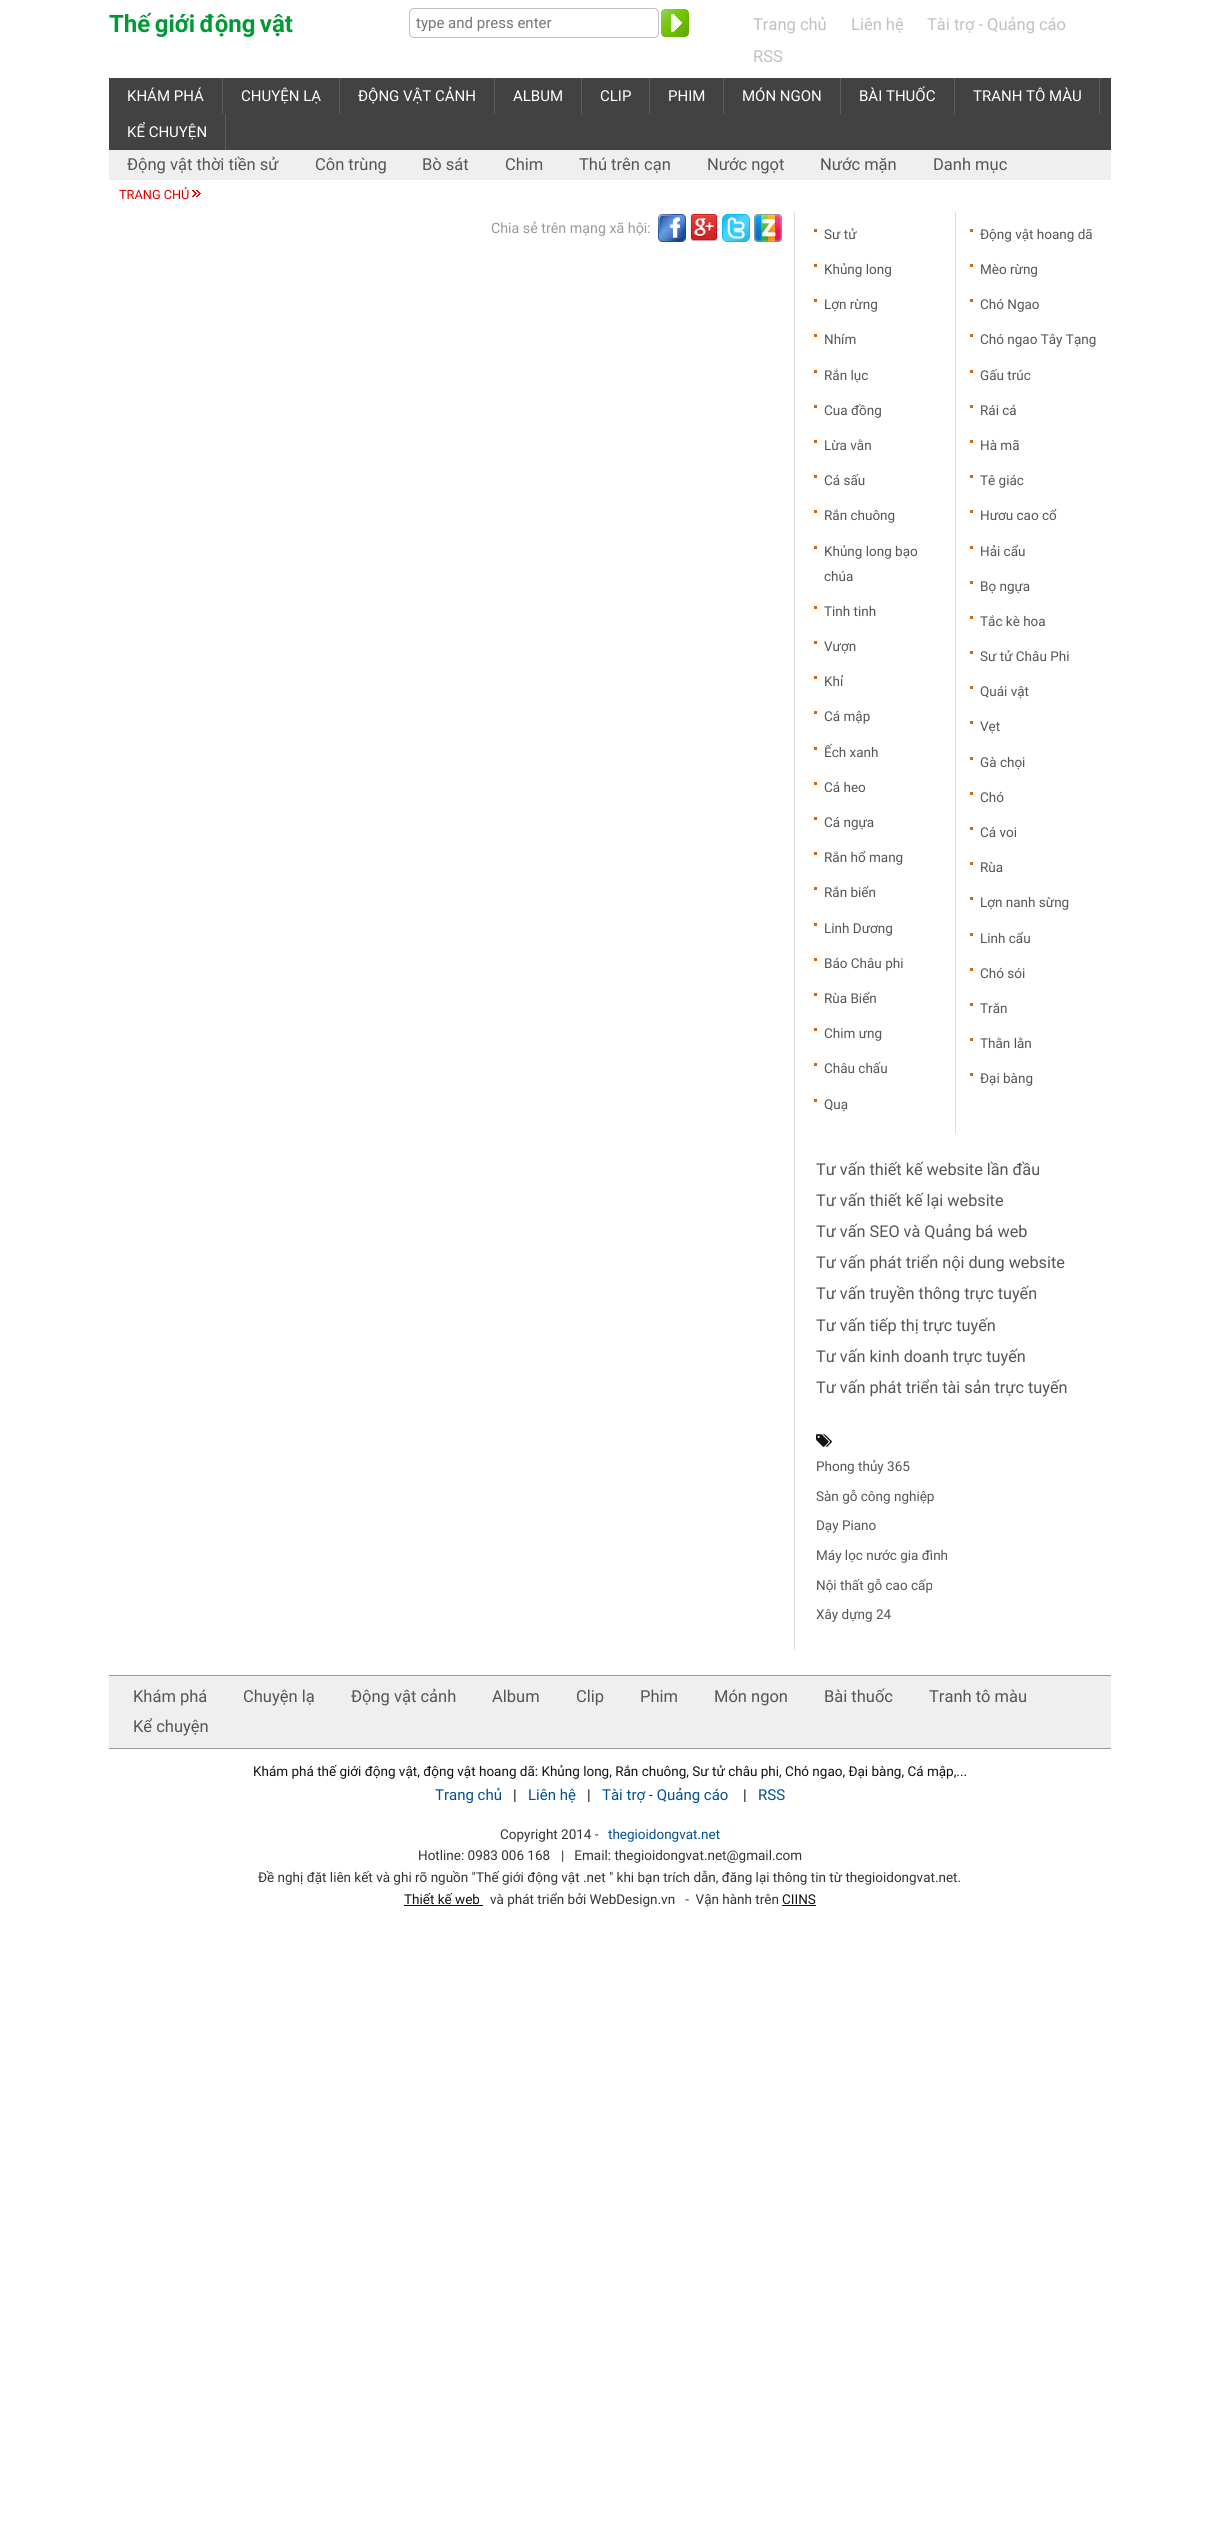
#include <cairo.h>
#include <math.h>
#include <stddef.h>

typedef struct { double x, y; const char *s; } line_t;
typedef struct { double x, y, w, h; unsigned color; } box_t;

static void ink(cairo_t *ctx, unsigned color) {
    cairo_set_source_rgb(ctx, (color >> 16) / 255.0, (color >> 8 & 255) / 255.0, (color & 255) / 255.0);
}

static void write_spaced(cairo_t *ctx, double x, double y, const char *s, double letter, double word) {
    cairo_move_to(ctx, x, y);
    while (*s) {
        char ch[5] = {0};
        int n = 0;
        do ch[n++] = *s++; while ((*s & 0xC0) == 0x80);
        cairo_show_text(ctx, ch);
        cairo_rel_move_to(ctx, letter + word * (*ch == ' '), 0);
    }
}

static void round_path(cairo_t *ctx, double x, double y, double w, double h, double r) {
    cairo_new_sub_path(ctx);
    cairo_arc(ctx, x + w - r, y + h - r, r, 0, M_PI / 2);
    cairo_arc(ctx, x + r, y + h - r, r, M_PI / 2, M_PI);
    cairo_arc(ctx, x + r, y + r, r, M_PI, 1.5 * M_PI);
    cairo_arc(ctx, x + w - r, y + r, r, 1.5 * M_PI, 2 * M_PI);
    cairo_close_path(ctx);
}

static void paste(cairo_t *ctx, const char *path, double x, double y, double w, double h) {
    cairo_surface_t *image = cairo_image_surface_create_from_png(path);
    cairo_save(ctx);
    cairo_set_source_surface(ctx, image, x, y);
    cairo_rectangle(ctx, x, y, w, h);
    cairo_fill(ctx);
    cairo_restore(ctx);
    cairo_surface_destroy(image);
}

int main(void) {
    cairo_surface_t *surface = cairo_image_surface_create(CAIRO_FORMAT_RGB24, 1220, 2543);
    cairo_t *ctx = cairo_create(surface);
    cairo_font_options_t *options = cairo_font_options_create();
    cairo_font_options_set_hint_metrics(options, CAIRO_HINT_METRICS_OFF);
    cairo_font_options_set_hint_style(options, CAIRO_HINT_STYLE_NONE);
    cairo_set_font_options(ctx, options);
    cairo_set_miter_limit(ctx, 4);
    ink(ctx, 0xFFFFFF);
    cairo_paint(ctx);
    cairo_select_font_face(ctx, "Roboto", CAIRO_FONT_SLANT_NORMAL, CAIRO_FONT_WEIGHT_BOLD);
    cairo_set_font_size(ctx, 24);
    ink(ctx, 0x009933);
    write_spaced(ctx, 109, 32, "Thế giới động vật", 0, -1.5);
    round_path(ctx, 409.5, 8.5, 249, 29, 4.5);
    ink(ctx, 0xC1C1C1);
    cairo_set_line_width(ctx, 1);
    cairo_stroke(ctx);
    cairo_select_font_face(ctx, "Roboto", CAIRO_FONT_SLANT_NORMAL, CAIRO_FONT_WEIGHT_NORMAL);
    cairo_set_font_size(ctx, 15);
    ink(ctx, 0x757575);
    cairo_move_to(ctx, 416, 28);
    cairo_show_text(ctx, "type and press enter");
    paste(ctx, "media/1.png", 661, 9, 28, 28);
    cairo_set_font_size(ctx, 16.5);
    ink(ctx, 0xC1C1C1);
    {
        static const line_t items[] = {
            {753, 30, "Trang chủ"},
            {851, 30, "Liên hệ"},
            {927, 30, "Tài trợ - Quảng cáo"},
            {753, 62, "RSS"},
        };
        for (size_t i = 0; i < sizeof items / sizeof *items; i++) {
            cairo_move_to(ctx, items[i].x, items[i].y);
            cairo_show_text(ctx, items[i].s);
        }
    }
    ink(ctx, 0x424242);
    cairo_rectangle(ctx, 109, 78, 1002, 72);
    cairo_fill(ctx);
    ink(ctx, 0x5C5C5C);
    cairo_rectangle(ctx, 222, 78, 1, 36);
    cairo_fill(ctx);
    cairo_set_font_size(ctx, 15);
    ink(ctx, 0xFFFFFF);
    cairo_move_to(ctx, 127, 101);
    cairo_show_text(ctx, "KHÁM PHÁ");
    ink(ctx, 0x5C5C5C);
    cairo_rectangle(ctx, 339, 78, 1, 36);
    cairo_fill(ctx);
    ink(ctx, 0xFFFFFF);
    cairo_move_to(ctx, 241, 101);
    cairo_show_text(ctx, "CHUYỆN LẠ");
    ink(ctx, 0x5C5C5C);
    cairo_rectangle(ctx, 494, 78, 1, 36);
    cairo_fill(ctx);
    ink(ctx, 0xFFFFFF);
    cairo_move_to(ctx, 358, 101);
    cairo_show_text(ctx, "ĐỘNG VẬT CẢNH");
    ink(ctx, 0x5C5C5C);
    cairo_rectangle(ctx, 581, 78, 1, 36);
    cairo_fill(ctx);
    ink(ctx, 0xFFFFFF);
    cairo_move_to(ctx, 513, 101);
    cairo_show_text(ctx, "ALBUM");
    ink(ctx, 0x5C5C5C);
    cairo_rectangle(ctx, 649, 78, 1, 36);
    cairo_fill(ctx);
    ink(ctx, 0xFFFFFF);
    cairo_move_to(ctx, 600, 101);
    cairo_show_text(ctx, "CLIP");
    ink(ctx, 0x5C5C5C);
    cairo_rectangle(ctx, 723, 78, 1, 36);
    cairo_fill(ctx);
    ink(ctx, 0xFFFFFF);
    cairo_move_to(ctx, 668, 101);
    cairo_show_text(ctx, "PHIM");
    ink(ctx, 0x5C5C5C);
    cairo_rectangle(ctx, 840, 78, 1, 36);
    cairo_fill(ctx);
    ink(ctx, 0xFFFFFF);
    cairo_move_to(ctx, 742, 101);
    cairo_show_text(ctx, "MÓN NGON");
    ink(ctx, 0x5C5C5C);
    cairo_rectangle(ctx, 954, 78, 1, 36);
    cairo_fill(ctx);
    ink(ctx, 0xFFFFFF);
    cairo_move_to(ctx, 859, 101);
    cairo_show_text(ctx, "BÀI THUỐC");
    ink(ctx, 0x5C5C5C);
    cairo_rectangle(ctx, 1099, 78, 1, 36);
    cairo_fill(ctx);
    ink(ctx, 0xFFFFFF);
    cairo_move_to(ctx, 973, 101);
    cairo_show_text(ctx, "TRANH TÔ MÀU");
    ink(ctx, 0x5C5C5C);
    cairo_rectangle(ctx, 225, 114, 1, 36);
    cairo_fill(ctx);
    ink(ctx, 0xFFFFFF);
    cairo_move_to(ctx, 127, 137);
    cairo_show_text(ctx, "KỂ CHUYỆN");
    ink(ctx, 0xEFEFEF);
    cairo_rectangle(ctx, 109, 150, 1002, 30);
    cairo_fill(ctx);
    cairo_set_font_size(ctx, 16.5);
    ink(ctx, 0x555555);
    {
        static const line_t items[] = {
            {127, 170, "Động vật thời tiền sử"},
            {315, 170, "Côn trùng"},
            {422, 170, "Bò sát"},
            {505, 170, "Chim"},
            {579, 170, "Thú trên cạn"},
            {707, 170, "Nước ngọt"},
            {820, 170, "Nước mặn"},
            {933, 170, "Danh mục"},
        };
        for (size_t i = 0; i < sizeof items / sizeof *items; i++) {
            cairo_move_to(ctx, items[i].x, items[i].y);
            cairo_show_text(ctx, items[i].s);
        }
    }
    paste(ctx, "media/2.png", 192, 190, 9, 7);
    cairo_set_font_size(ctx, 12.75);
    ink(ctx, 0xE60000);
    cairo_move_to(ctx, 119, 199);
    cairo_show_text(ctx, "TRANG CHỦ");
    ink(ctx, 0xDDDDDD);
    cairo_rectangle(ctx, 794, 212, 1, 1438);
    cairo_fill(ctx);
    cairo_set_font_size(ctx, 14.25);
    ink(ctx, 0x999999);
    cairo_move_to(ctx, 491, 233);
    cairo_show_text(ctx, "Chia sẻ trên mạng xã hội:");
    paste(ctx, "media/3.png", 658, 214, 28, 28);
    paste(ctx, "media/4.png", 690, 214, 28, 28);
    paste(ctx, "media/5.png", 722, 214, 28, 28);
    paste(ctx, "media/6.png", 754, 214, 28, 28);
    ink(ctx, 0xDDDDDD);
    cairo_rectangle(ctx, 955, 212, 1, 921);
    cairo_fill(ctx);
    ink(ctx, 0xD86409);
    cairo_rectangle(ctx, 814, 229, 3, 3);
    cairo_fill(ctx);
    cairo_set_font_size(ctx, 13.5);
    ink(ctx, 0x555555);
    cairo_move_to(ctx, 824, 239);
    cairo_show_text(ctx, "Sư tử");
    ink(ctx, 0xD86409);
    cairo_rectangle(ctx, 814, 264, 3, 3);
    cairo_fill(ctx);
    ink(ctx, 0x555555);
    cairo_move_to(ctx, 824, 274);
    cairo_show_text(ctx, "Khủng long");
    ink(ctx, 0xD86409);
    cairo_rectangle(ctx, 814, 299, 3, 3);
    cairo_fill(ctx);
    ink(ctx, 0x555555);
    cairo_move_to(ctx, 824, 309);
    cairo_show_text(ctx, "Lợn rừng");
    ink(ctx, 0xD86409);
    cairo_rectangle(ctx, 814, 334, 3, 3);
    cairo_fill(ctx);
    ink(ctx, 0x555555);
    cairo_move_to(ctx, 824, 344);
    cairo_show_text(ctx, "Nhím");
    ink(ctx, 0xD86409);
    cairo_rectangle(ctx, 814, 370, 3, 3);
    cairo_fill(ctx);
    ink(ctx, 0x555555);
    cairo_move_to(ctx, 824, 380);
    cairo_show_text(ctx, "Rắn lục");
    ink(ctx, 0xD86409);
    cairo_rectangle(ctx, 814, 405, 3, 3);
    cairo_fill(ctx);
    ink(ctx, 0x555555);
    cairo_move_to(ctx, 824, 415);
    cairo_show_text(ctx, "Cua đồng");
    ink(ctx, 0xD86409);
    cairo_rectangle(ctx, 814, 440, 3, 3);
    cairo_fill(ctx);
    ink(ctx, 0x555555);
    cairo_move_to(ctx, 824, 450);
    cairo_show_text(ctx, "Lừa vằn");
    ink(ctx, 0xD86409);
    cairo_rectangle(ctx, 814, 475, 3, 3);
    cairo_fill(ctx);
    ink(ctx, 0x555555);
    cairo_move_to(ctx, 824, 485);
    cairo_show_text(ctx, "Cá sấu");
    ink(ctx, 0xD86409);
    cairo_rectangle(ctx, 814, 510, 3, 3);
    cairo_fill(ctx);
    ink(ctx, 0x555555);
    cairo_move_to(ctx, 824, 520);
    cairo_show_text(ctx, "Rắn chuông");
    ink(ctx, 0xD86409);
    cairo_rectangle(ctx, 814, 546, 3, 3);
    cairo_fill(ctx);
    ink(ctx, 0x555555);
    cairo_move_to(ctx, 824, 556);
    cairo_show_text(ctx, "Khủng long bạo");
    cairo_move_to(ctx, 824, 581);
    cairo_show_text(ctx, "chúa");
    ink(ctx, 0xD86409);
    cairo_rectangle(ctx, 814, 606, 3, 3);
    cairo_fill(ctx);
    ink(ctx, 0x555555);
    cairo_move_to(ctx, 824, 616);
    cairo_show_text(ctx, "Tinh tinh");
    ink(ctx, 0xD86409);
    cairo_rectangle(ctx, 814, 641, 3, 3);
    cairo_fill(ctx);
    ink(ctx, 0x555555);
    cairo_move_to(ctx, 824, 651);
    cairo_show_text(ctx, "Vượn");
    ink(ctx, 0xD86409);
    cairo_rectangle(ctx, 814, 676, 3, 3);
    cairo_fill(ctx);
    ink(ctx, 0x555555);
    cairo_move_to(ctx, 824, 686);
    cairo_show_text(ctx, "Khỉ");
    ink(ctx, 0xD86409);
    cairo_rectangle(ctx, 814, 711, 3, 3);
    cairo_fill(ctx);
    ink(ctx, 0x555555);
    cairo_move_to(ctx, 824, 721);
    cairo_show_text(ctx, "Cá mập");
    ink(ctx, 0xD86409);
    cairo_rectangle(ctx, 814, 747, 3, 3);
    cairo_fill(ctx);
    ink(ctx, 0x555555);
    cairo_move_to(ctx, 824, 757);
    cairo_show_text(ctx, "Ếch xanh");
    ink(ctx, 0xD86409);
    cairo_rectangle(ctx, 814, 782, 3, 3);
    cairo_fill(ctx);
    ink(ctx, 0x555555);
    cairo_move_to(ctx, 824, 792);
    cairo_show_text(ctx, "Cá heo");
    ink(ctx, 0xD86409);
    cairo_rectangle(ctx, 814, 817, 3, 3);
    cairo_fill(ctx);
    ink(ctx, 0x555555);
    cairo_move_to(ctx, 824, 827);
    cairo_show_text(ctx, "Cá ngựa");
    ink(ctx, 0xD86409);
    cairo_rectangle(ctx, 814, 852, 3, 3);
    cairo_fill(ctx);
    ink(ctx, 0x555555);
    cairo_move_to(ctx, 824, 862);
    cairo_show_text(ctx, "Rắn hổ mang");
    ink(ctx, 0xD86409);
    cairo_rectangle(ctx, 814, 887, 3, 3);
    cairo_fill(ctx);
    ink(ctx, 0x555555);
    cairo_move_to(ctx, 824, 897);
    cairo_show_text(ctx, "Rắn biển");
    ink(ctx, 0xD86409);
    cairo_rectangle(ctx, 814, 923, 3, 3);
    cairo_fill(ctx);
    ink(ctx, 0x555555);
    cairo_move_to(ctx, 824, 933);
    cairo_show_text(ctx, "Linh Dương");
    ink(ctx, 0xD86409);
    cairo_rectangle(ctx, 814, 958, 3, 3);
    cairo_fill(ctx);
    ink(ctx, 0x555555);
    cairo_move_to(ctx, 824, 968);
    cairo_show_text(ctx, "Báo Châu phi");
    ink(ctx, 0xD86409);
    cairo_rectangle(ctx, 814, 993, 3, 3);
    cairo_fill(ctx);
    ink(ctx, 0x555555);
    cairo_move_to(ctx, 824, 1003);
    cairo_show_text(ctx, "Rùa Biển");
    ink(ctx, 0xD86409);
    cairo_rectangle(ctx, 814, 1028, 3, 3);
    cairo_fill(ctx);
    ink(ctx, 0x555555);
    cairo_move_to(ctx, 824, 1038);
    cairo_show_text(ctx, "Chim ưng");
    ink(ctx, 0xD86409);
    cairo_rectangle(ctx, 814, 1063, 3, 3);
    cairo_fill(ctx);
    ink(ctx, 0x555555);
    cairo_move_to(ctx, 824, 1073);
    cairo_show_text(ctx, "Châu chấu");
    ink(ctx, 0xD86409);
    cairo_rectangle(ctx, 814, 1099, 3, 3);
    cairo_fill(ctx);
    ink(ctx, 0x555555);
    cairo_move_to(ctx, 824, 1109);
    cairo_show_text(ctx, "Quạ");
    ink(ctx, 0xD86409);
    cairo_rectangle(ctx, 970, 229, 3, 3);
    cairo_fill(ctx);
    ink(ctx, 0x555555);
    cairo_move_to(ctx, 980, 239);
    cairo_show_text(ctx, "Động vật hoang dã");
    ink(ctx, 0xD86409);
    cairo_rectangle(ctx, 970, 264, 3, 3);
    cairo_fill(ctx);
    ink(ctx, 0x555555);
    cairo_move_to(ctx, 980, 274);
    cairo_show_text(ctx, "Mèo rừng");
    ink(ctx, 0xD86409);
    cairo_rectangle(ctx, 970, 299, 3, 3);
    cairo_fill(ctx);
    ink(ctx, 0x555555);
    cairo_move_to(ctx, 980, 309);
    cairo_show_text(ctx, "Chó Ngao");
    ink(ctx, 0xD86409);
    cairo_rectangle(ctx, 970, 334, 3, 3);
    cairo_fill(ctx);
    ink(ctx, 0x555555);
    cairo_move_to(ctx, 980, 344);
    cairo_show_text(ctx, "Chó ngao Tây Tạng");
    ink(ctx, 0xD86409);
    cairo_rectangle(ctx, 970, 370, 3, 3);
    cairo_fill(ctx);
    ink(ctx, 0x555555);
    cairo_move_to(ctx, 980, 380);
    cairo_show_text(ctx, "Gấu trúc");
    ink(ctx, 0xD86409);
    cairo_rectangle(ctx, 970, 405, 3, 3);
    cairo_fill(ctx);
    ink(ctx, 0x555555);
    cairo_move_to(ctx, 980, 415);
    cairo_show_text(ctx, "Rái cá");
    ink(ctx, 0xD86409);
    cairo_rectangle(ctx, 970, 440, 3, 3);
    cairo_fill(ctx);
    ink(ctx, 0x555555);
    cairo_move_to(ctx, 980, 450);
    cairo_show_text(ctx, "Hà mã");
    ink(ctx, 0xD86409);
    cairo_rectangle(ctx, 970, 475, 3, 3);
    cairo_fill(ctx);
    ink(ctx, 0x555555);
    cairo_move_to(ctx, 980, 485);
    cairo_show_text(ctx, "Tê giác");
    ink(ctx, 0xD86409);
    cairo_rectangle(ctx, 970, 510, 3, 3);
    cairo_fill(ctx);
    ink(ctx, 0x555555);
    cairo_move_to(ctx, 980, 520);
    cairo_show_text(ctx, "Hươu cao cổ");
    ink(ctx, 0xD86409);
    cairo_rectangle(ctx, 970, 546, 3, 3);
    cairo_fill(ctx);
    ink(ctx, 0x555555);
    cairo_move_to(ctx, 980, 556);
    cairo_show_text(ctx, "Hải cẩu");
    ink(ctx, 0xD86409);
    cairo_rectangle(ctx, 970, 581, 3, 3);
    cairo_fill(ctx);
    ink(ctx, 0x555555);
    cairo_move_to(ctx, 980, 591);
    cairo_show_text(ctx, "Bọ ngựa");
    ink(ctx, 0xD86409);
    cairo_rectangle(ctx, 970, 616, 3, 3);
    cairo_fill(ctx);
    ink(ctx, 0x555555);
    cairo_move_to(ctx, 980, 626);
    cairo_show_text(ctx, "Tắc kè hoa");
    ink(ctx, 0xD86409);
    cairo_rectangle(ctx, 970, 651, 3, 3);
    cairo_fill(ctx);
    ink(ctx, 0x555555);
    cairo_move_to(ctx, 980, 661);
    cairo_show_text(ctx, "Sư tử Châu Phi");
    ink(ctx, 0xD86409);
    cairo_rectangle(ctx, 970, 686, 3, 3);
    cairo_fill(ctx);
    ink(ctx, 0x555555);
    cairo_move_to(ctx, 980, 696);
    cairo_show_text(ctx, "Quái vật");
    ink(ctx, 0xD86409);
    cairo_rectangle(ctx, 970, 721, 3, 3);
    cairo_fill(ctx);
    ink(ctx, 0x555555);
    cairo_move_to(ctx, 980, 731);
    cairo_show_text(ctx, "Vẹt");
    ink(ctx, 0xD86409);
    cairo_rectangle(ctx, 970, 757, 3, 3);
    cairo_fill(ctx);
    ink(ctx, 0x555555);
    cairo_move_to(ctx, 980, 767);
    cairo_show_text(ctx, "Gà chọi");
    ink(ctx, 0xD86409);
    cairo_rectangle(ctx, 970, 792, 3, 3);
    cairo_fill(ctx);
    ink(ctx, 0x555555);
    cairo_move_to(ctx, 980, 802);
    cairo_show_text(ctx, "Chó");
    ink(ctx, 0xD86409);
    cairo_rectangle(ctx, 970, 827, 3, 3);
    cairo_fill(ctx);
    ink(ctx, 0x555555);
    cairo_move_to(ctx, 980, 837);
    cairo_show_text(ctx, "Cá voi");
    ink(ctx, 0xD86409);
    cairo_rectangle(ctx, 970, 862, 3, 3);
    cairo_fill(ctx);
    ink(ctx, 0x555555);
    cairo_move_to(ctx, 980, 872);
    cairo_show_text(ctx, "Rùa");
    ink(ctx, 0xD86409);
    cairo_rectangle(ctx, 970, 897, 3, 3);
    cairo_fill(ctx);
    ink(ctx, 0x555555);
    cairo_move_to(ctx, 980, 907);
    cairo_show_text(ctx, "Lợn nanh sừng");
    ink(ctx, 0xD86409);
    cairo_rectangle(ctx, 970, 933, 3, 3);
    cairo_fill(ctx);
    ink(ctx, 0x555555);
    cairo_move_to(ctx, 980, 943);
    cairo_show_text(ctx, "Linh cẩu");
    ink(ctx, 0xD86409);
    cairo_rectangle(ctx, 970, 968, 3, 3);
    cairo_fill(ctx);
    ink(ctx, 0x555555);
    cairo_move_to(ctx, 980, 978);
    cairo_show_text(ctx, "Chó sói");
    ink(ctx, 0xD86409);
    cairo_rectangle(ctx, 970, 1003, 3, 3);
    cairo_fill(ctx);
    ink(ctx, 0x555555);
    cairo_move_to(ctx, 980, 1013);
    cairo_show_text(ctx, "Trăn");
    ink(ctx, 0xD86409);
    cairo_rectangle(ctx, 970, 1038, 3, 3);
    cairo_fill(ctx);
    ink(ctx, 0x555555);
    cairo_move_to(ctx, 980, 1048);
    cairo_show_text(ctx, "Thằn lằn");
    ink(ctx, 0xD86409);
    cairo_rectangle(ctx, 970, 1073, 3, 3);
    cairo_fill(ctx);
    ink(ctx, 0x555555);
    cairo_move_to(ctx, 980, 1083);
    cairo_show_text(ctx, "Đại bàng");
    cairo_set_font_size(ctx, 16.25);
    {
        static const line_t items[] = {
            {816, 1175, "Tư vấn thiết kế website lần đầu"},
            {816, 1206, "Tư vấn thiết kế lại website"},
            {816, 1237, "Tư vấn SEO và Quảng bá web"},
            {816, 1268, "Tư vấn phát triển nội dung website"},
            {816, 1299, "Tư vấn truyền thông trực tuyến"},
            {816, 1331, "Tư vấn tiếp thị trực tuyến"},
            {816, 1362, "Tư vấn kinh doanh trực tuyến"},
            {816, 1393, "Tư vấn phát triển tài sản trực tuyến"},
        };
        for (size_t i = 0; i < sizeof items / sizeof *items; i++) {
            cairo_move_to(ctx, items[i].x, items[i].y);
            cairo_show_text(ctx, items[i].s);
        }
    }
    paste(ctx, "media/7.png", 816, 1434, 16, 13);
    cairo_set_font_size(ctx, 13.5);
    {
        static const line_t items[] = {
            {816, 1471, "Phong thủy 365"},
            {816, 1501, "Sàn gỗ công nghiệp"},
            {816, 1530, "Dạy Piano"},
            {816, 1560, "Máy lọc nước gia đình"},
            {816, 1590, "Nội thất gỗ cao cấp"},
            {816, 1619, "Xây dựng 24"},
        };
        for (size_t i = 0; i < sizeof items / sizeof *items; i++) {
            cairo_move_to(ctx, items[i].x, items[i].y);
            cairo_show_text(ctx, items[i].s);
        }
    }
    {
        static const box_t items[] = {
            {109, 1676, 1002, 72, 0xEFEFEF},
            {109, 1675, 1002, 1, 0x999999},
            {109, 1748, 1002, 1, 0x999999},
        };
        for (size_t i = 0; i < sizeof items / sizeof *items; i++) {
            ink(ctx, items[i].color);
            cairo_rectangle(ctx, items[i].x, items[i].y, items[i].w, items[i].h);
            cairo_fill(ctx);
        }
    }
    cairo_set_font_size(ctx, 16.5);
    ink(ctx, 0x555555);
    {
        static const line_t items[] = {
            {133, 1702, "Khám phá"},
            {243, 1702, "Chuyện lạ"},
            {351, 1702, "Động vật cảnh"},
            {492, 1702, "Album"},
            {576, 1702, "Clip"},
            {640, 1702, "Phim"},
            {714, 1702, "Món ngon"},
            {824, 1702, "Bài thuốc"},
            {929, 1702, "Tranh tô màu"},
            {133, 1732, "Kể chuyện"},
        };
        for (size_t i = 0; i < sizeof items / sizeof *items; i++) {
            cairo_move_to(ctx, items[i].x, items[i].y);
            cairo_show_text(ctx, items[i].s);
        }
    }
    cairo_set_font_size(ctx, 13.5);
    ink(ctx, 0x111111);
    cairo_move_to(ctx, 253, 1776);
    cairo_show_text(ctx, "Khám phá thế giới động vật, động vật hoang dã: Khủng long, Rắn chuông, Sư tử châu phi, Chó ngao, Đại bàng, Cá mập,...");
    cairo_set_font_size(ctx, 15);
    ink(ctx, 0x005096);
    cairo_move_to(ctx, 435, 1800);
    cairo_show_text(ctx, "Trang chủ");
    ink(ctx, 0x111111);
    cairo_move_to(ctx, 513, 1800);
    cairo_show_text(ctx, "|");
    ink(ctx, 0x005096);
    cairo_move_to(ctx, 528, 1800);
    cairo_show_text(ctx, "Liên hệ");
    ink(ctx, 0x111111);
    cairo_move_to(ctx, 587, 1800);
    cairo_show_text(ctx, "|");
    ink(ctx, 0x005096);
    cairo_move_to(ctx, 602, 1800);
    cairo_show_text(ctx, "Tài trợ - Quảng cáo");
    ink(ctx, 0x111111);
    cairo_move_to(ctx, 743, 1800);
    cairo_show_text(ctx, "|");
    ink(ctx, 0x005096);
    cairo_move_to(ctx, 758, 1800);
    cairo_show_text(ctx, "RSS");
    cairo_set_font_size(ctx, 13.5);
    ink(ctx, 0x333333);
    cairo_move_to(ctx, 500, 1839);
    cairo_show_text(ctx, "Copyright 2014 -");
    ink(ctx, 0x005096);
    cairo_move_to(ctx, 608, 1839);
    cairo_show_text(ctx, "thegioidongvat.net");
    ink(ctx, 0x333333);
    {
        static const line_t items[] = {
            {418, 1860, "Hotline: 0983 006 168"},
            {561, 1860, "|   Email: thegioidongvat.net@gmail.com"},
            {258, 1882, "Đề nghị đặt liên kết và ghi rõ nguồn \"Thế giới động vật .net \" khi bạn trích dẫn, đăng lại thông tin từ thegioidongvat.net."},
        };
        for (size_t i = 0; i < sizeof items / sizeof *items; i++) {
            cairo_move_to(ctx, items[i].x, items[i].y);
            cairo_show_text(ctx, items[i].s);
        }
    }
    ink(ctx, 0x111111);
    cairo_move_to(ctx, 404, 1904);
    cairo_show_text(ctx, "Thiết kế web");
    cairo_rectangle(ctx, 404, 1905, 79, 1);
    cairo_fill(ctx);
    ink(ctx, 0x333333);
    cairo_move_to(ctx, 490, 1904);
    cairo_show_text(ctx, "và phát triển bởi WebDesign.vn   -  Vận hành trên");
    ink(ctx, 0x111111);
    cairo_move_to(ctx, 782, 1904);
    cairo_show_text(ctx, "CIINS");
    cairo_rectangle(ctx, 782, 1905, 34, 1);
    cairo_fill(ctx);
    cairo_surface_write_to_png(surface, "image.png");
    cairo_font_options_destroy(options);
    cairo_destroy(ctx);
    cairo_surface_destroy(surface);
    return 0;
}
